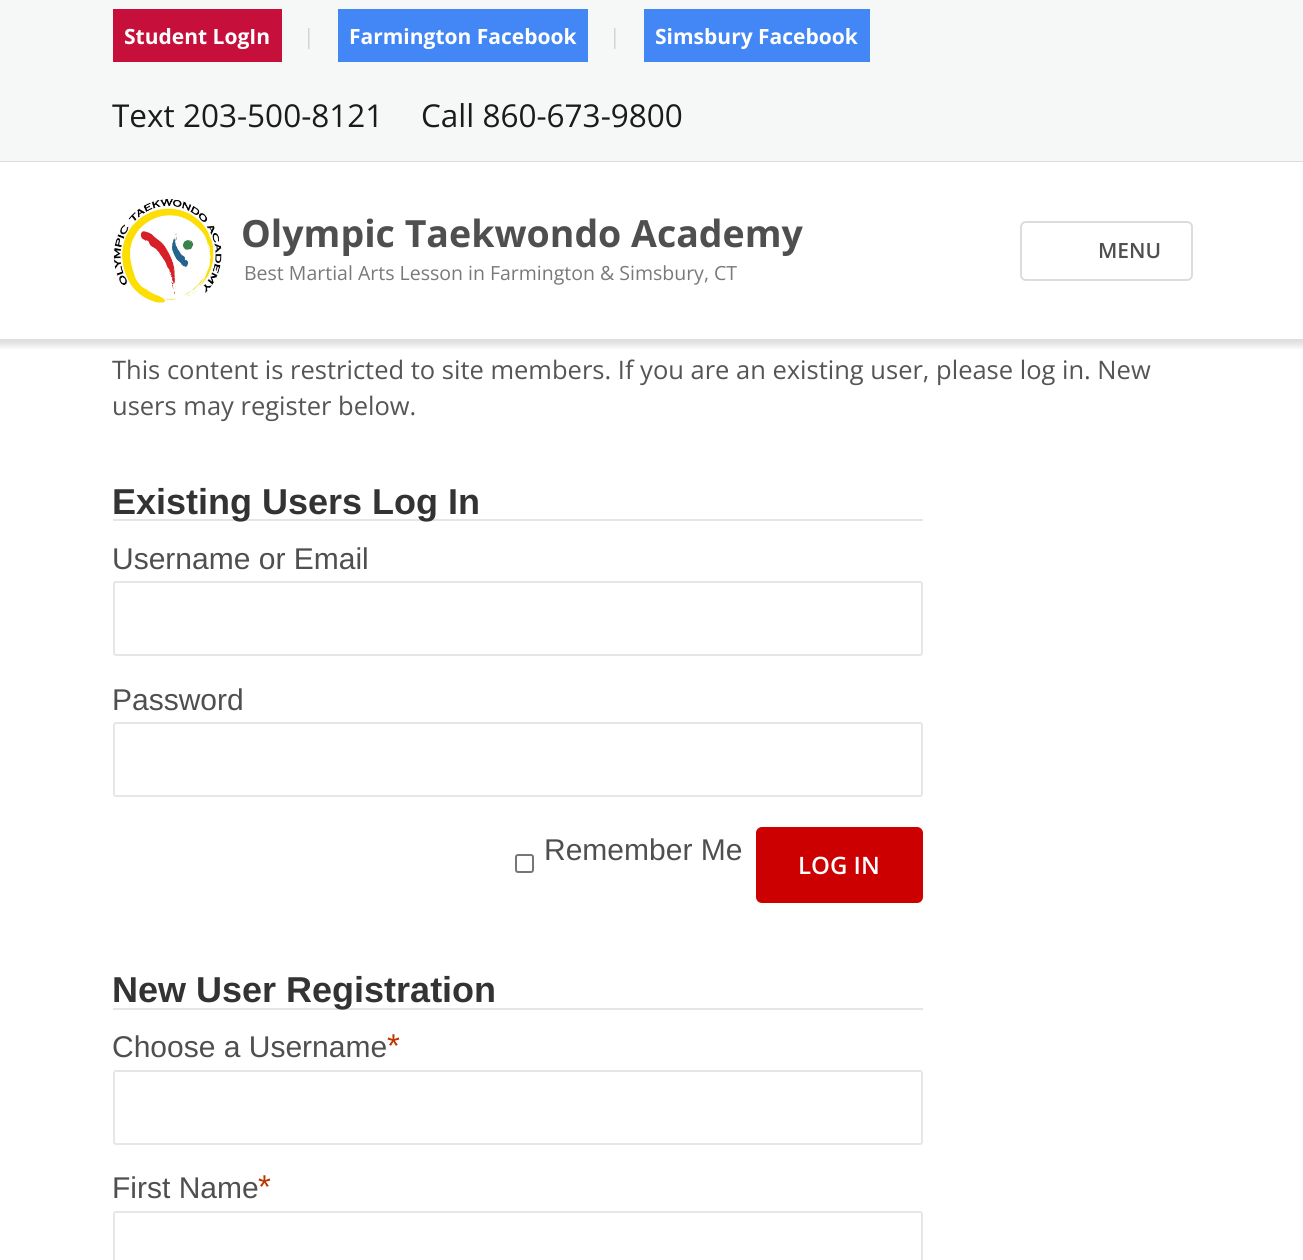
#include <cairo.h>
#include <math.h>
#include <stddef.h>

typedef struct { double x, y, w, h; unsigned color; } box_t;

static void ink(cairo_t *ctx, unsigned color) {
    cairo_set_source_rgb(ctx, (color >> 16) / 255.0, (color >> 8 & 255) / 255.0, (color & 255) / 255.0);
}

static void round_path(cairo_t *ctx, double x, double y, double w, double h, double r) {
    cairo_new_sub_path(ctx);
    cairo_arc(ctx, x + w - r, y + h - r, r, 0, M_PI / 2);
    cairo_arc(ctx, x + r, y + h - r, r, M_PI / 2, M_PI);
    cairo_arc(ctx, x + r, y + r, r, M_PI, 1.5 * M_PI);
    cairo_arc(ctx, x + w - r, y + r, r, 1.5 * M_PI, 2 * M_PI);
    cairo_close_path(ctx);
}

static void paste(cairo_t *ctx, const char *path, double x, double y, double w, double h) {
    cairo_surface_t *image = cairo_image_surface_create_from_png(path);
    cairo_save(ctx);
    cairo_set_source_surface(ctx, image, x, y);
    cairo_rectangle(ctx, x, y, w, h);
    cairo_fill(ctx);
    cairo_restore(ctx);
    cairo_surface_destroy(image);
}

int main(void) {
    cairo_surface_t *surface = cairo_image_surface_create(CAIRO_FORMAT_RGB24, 1303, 1260);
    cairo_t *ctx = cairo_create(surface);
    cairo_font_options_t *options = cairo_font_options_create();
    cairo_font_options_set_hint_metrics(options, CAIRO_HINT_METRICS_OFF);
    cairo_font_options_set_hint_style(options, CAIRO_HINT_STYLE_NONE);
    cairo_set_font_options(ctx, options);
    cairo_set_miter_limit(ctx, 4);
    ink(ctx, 0xFFFFFF);
    cairo_paint(ctx);
    {
        static const box_t items[] = {
            {0, 0, 1303, 161, 0xF6F7F7},
            {0, 161, 1303, 1, 0xD9DDE0},
            {113, 9, 169, 53, 0xC60F3A},
        };
        for (size_t i = 0; i < sizeof items / sizeof *items; i++) {
            ink(ctx, items[i].color);
            cairo_rectangle(ctx, items[i].x, items[i].y, items[i].w, items[i].h);
            cairo_fill(ctx);
        }
    }
    cairo_select_font_face(ctx, "Open Sans", CAIRO_FONT_SLANT_NORMAL, CAIRO_FONT_WEIGHT_BOLD);
    cairo_set_font_size(ctx, 21);
    ink(ctx, 0xFFFFFF);
    cairo_move_to(ctx, 124, 44);
    cairo_show_text(ctx, "Student LogIn");
    cairo_select_font_face(ctx, "Open Sans", CAIRO_FONT_SLANT_NORMAL, CAIRO_FONT_WEIGHT_NORMAL);
    ink(ctx, 0xCFD3D7);
    cairo_move_to(ctx, 303, 44);
    cairo_show_text(ctx, "|");
    ink(ctx, 0x4287F5);
    cairo_rectangle(ctx, 338, 9, 250, 53);
    cairo_fill(ctx);
    cairo_select_font_face(ctx, "Open Sans", CAIRO_FONT_SLANT_NORMAL, CAIRO_FONT_WEIGHT_BOLD);
    ink(ctx, 0xFFFFFF);
    cairo_move_to(ctx, 349, 44);
    cairo_show_text(ctx, "Farmington Facebook");
    cairo_select_font_face(ctx, "Open Sans", CAIRO_FONT_SLANT_NORMAL, CAIRO_FONT_WEIGHT_NORMAL);
    ink(ctx, 0xCFD3D7);
    cairo_move_to(ctx, 609, 44);
    cairo_show_text(ctx, "|");
    ink(ctx, 0x4287F5);
    cairo_rectangle(ctx, 644, 9, 226, 53);
    cairo_fill(ctx);
    cairo_select_font_face(ctx, "Open Sans", CAIRO_FONT_SLANT_NORMAL, CAIRO_FONT_WEIGHT_BOLD);
    ink(ctx, 0xFFFFFF);
    cairo_move_to(ctx, 655, 44);
    cairo_show_text(ctx, "Simsbury Facebook");
    cairo_select_font_face(ctx, "Open Sans", CAIRO_FONT_SLANT_NORMAL, CAIRO_FONT_WEIGHT_NORMAL);
    cairo_set_font_size(ctx, 31.5);
    ink(ctx, 0x1B1B1B);
    cairo_move_to(ctx, 112, 127);
    cairo_show_text(ctx, "Text 203-500-8121");
    cairo_move_to(ctx, 421, 127);
    cairo_show_text(ctx, "Call 860-673-9800");
    paste(ctx, "media/1.png", 113, 199, 109, 104);
    cairo_select_font_face(ctx, "Open Sans", CAIRO_FONT_SLANT_NORMAL, CAIRO_FONT_WEIGHT_BOLD);
    cairo_set_font_size(ctx, 37.5);
    ink(ctx, 0x4F4F4F);
    cairo_move_to(ctx, 241, 247);
    cairo_show_text(ctx, "Olympic Taekwondo Academy");
    cairo_select_font_face(ctx, "Open Sans", CAIRO_FONT_SLANT_NORMAL, CAIRO_FONT_WEIGHT_NORMAL);
    cairo_set_font_size(ctx, 19.5);
    ink(ctx, 0x797979);
    cairo_move_to(ctx, 244, 280);
    cairo_show_text(ctx, "Best Martial Arts Lesson in Farmington & Simsbury, CT");
    round_path(ctx, 1021, 222, 171, 58, 5);
    ink(ctx, 0xD9DDE0);
    cairo_stroke(ctx);
    cairo_select_font_face(ctx, "Open Sans SemiBold", CAIRO_FONT_SLANT_NORMAL, CAIRO_FONT_WEIGHT_NORMAL);
    cairo_set_font_size(ctx, 21);
    ink(ctx, 0x4F4F4F);
    cairo_move_to(ctx, 1098, 258);
    cairo_show_text(ctx, "MENU");
    paste(ctx, "media/2.png", 0, 339, 1303, 10);
    cairo_select_font_face(ctx, "Open Sans", CAIRO_FONT_SLANT_NORMAL, CAIRO_FONT_WEIGHT_NORMAL);
    cairo_set_font_size(ctx, 25.5);
    ink(ctx, 0x555555);
    cairo_move_to(ctx, 112, 379);
    cairo_show_text(ctx, "This content is restricted to site members. If you are an existing user, please log in. New");
    cairo_move_to(ctx, 112, 415);
    cairo_show_text(ctx, "users may register below.");
    ink(ctx, 0xE5E5E5);
    cairo_rectangle(ctx, 113, 519, 810, 2);
    cairo_fill(ctx);
    cairo_select_font_face(ctx, "Liberation Sans", CAIRO_FONT_SLANT_NORMAL, CAIRO_FONT_WEIGHT_BOLD);
    cairo_set_font_size(ctx, 36);
    ink(ctx, 0x333333);
    cairo_move_to(ctx, 112, 514);
    cairo_show_text(ctx, "Existing Users Log In");
    cairo_select_font_face(ctx, "Liberation Sans", CAIRO_FONT_SLANT_NORMAL, CAIRO_FONT_WEIGHT_NORMAL);
    cairo_set_font_size(ctx, 30);
    ink(ctx, 0x4F4F4F);
    cairo_move_to(ctx, 112, 569);
    cairo_show_text(ctx, "Username or Email");
    round_path(ctx, 114, 582, 808, 73, 2);
    ink(ctx, 0xE6E6E6);
    cairo_stroke(ctx);
    ink(ctx, 0x4F4F4F);
    cairo_move_to(ctx, 112, 710);
    cairo_show_text(ctx, "Password");
    round_path(ctx, 114, 723, 808, 73, 2);
    ink(ctx, 0xE6E6E6);
    cairo_stroke(ctx);
    ink(ctx, 0x4F4F4F);
    cairo_move_to(ctx, 544, 860);
    cairo_show_text(ctx, "Remember Me");
    round_path(ctx, 516, 855, 17, 17, 2);
    ink(ctx, 0x767676);
    cairo_stroke(ctx);
    ink(ctx, 0xCC0000);
    round_path(ctx, 756, 827, 167, 76, 6);
    cairo_fill(ctx);
    cairo_select_font_face(ctx, "Open Sans SemiBold", CAIRO_FONT_SLANT_NORMAL, CAIRO_FONT_WEIGHT_NORMAL);
    cairo_set_font_size(ctx, 24);
    ink(ctx, 0xFFFFFF);
    cairo_move_to(ctx, 798, 874);
    cairo_show_text(ctx, "LOG IN");
    ink(ctx, 0xE5E5E5);
    cairo_rectangle(ctx, 113, 1008, 810, 2);
    cairo_fill(ctx);
    cairo_select_font_face(ctx, "Liberation Sans", CAIRO_FONT_SLANT_NORMAL, CAIRO_FONT_WEIGHT_BOLD);
    cairo_set_font_size(ctx, 36);
    ink(ctx, 0x333333);
    cairo_move_to(ctx, 112, 1002);
    cairo_show_text(ctx, "New User Registration");
    cairo_select_font_face(ctx, "Liberation Sans", CAIRO_FONT_SLANT_NORMAL, CAIRO_FONT_WEIGHT_NORMAL);
    cairo_set_font_size(ctx, 30);
    ink(ctx, 0x4F4F4F);
    cairo_move_to(ctx, 112, 1057);
    cairo_show_text(ctx, "Choose a Username");
    cairo_set_font_size(ctx, 33);
    ink(ctx, 0xBD3500);
    cairo_move_to(ctx, 387, 1057);
    cairo_show_text(ctx, "*");
    round_path(ctx, 114, 1071, 808, 73, 2);
    ink(ctx, 0xE6E6E6);
    cairo_stroke(ctx);
    cairo_set_font_size(ctx, 30);
    ink(ctx, 0x4F4F4F);
    cairo_move_to(ctx, 112, 1198);
    cairo_show_text(ctx, "First Name");
    cairo_set_font_size(ctx, 33);
    ink(ctx, 0xBD3500);
    cairo_move_to(ctx, 258, 1198);
    cairo_show_text(ctx, "*");
    round_path(ctx, 114, 1212, 808, 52, 2);
    ink(ctx, 0xE6E6E6);
    cairo_stroke(ctx);
    cairo_surface_write_to_png(surface, "image.png");
    cairo_font_options_destroy(options);
    cairo_destroy(ctx);
    cairo_surface_destroy(surface);
    return 0;
}
